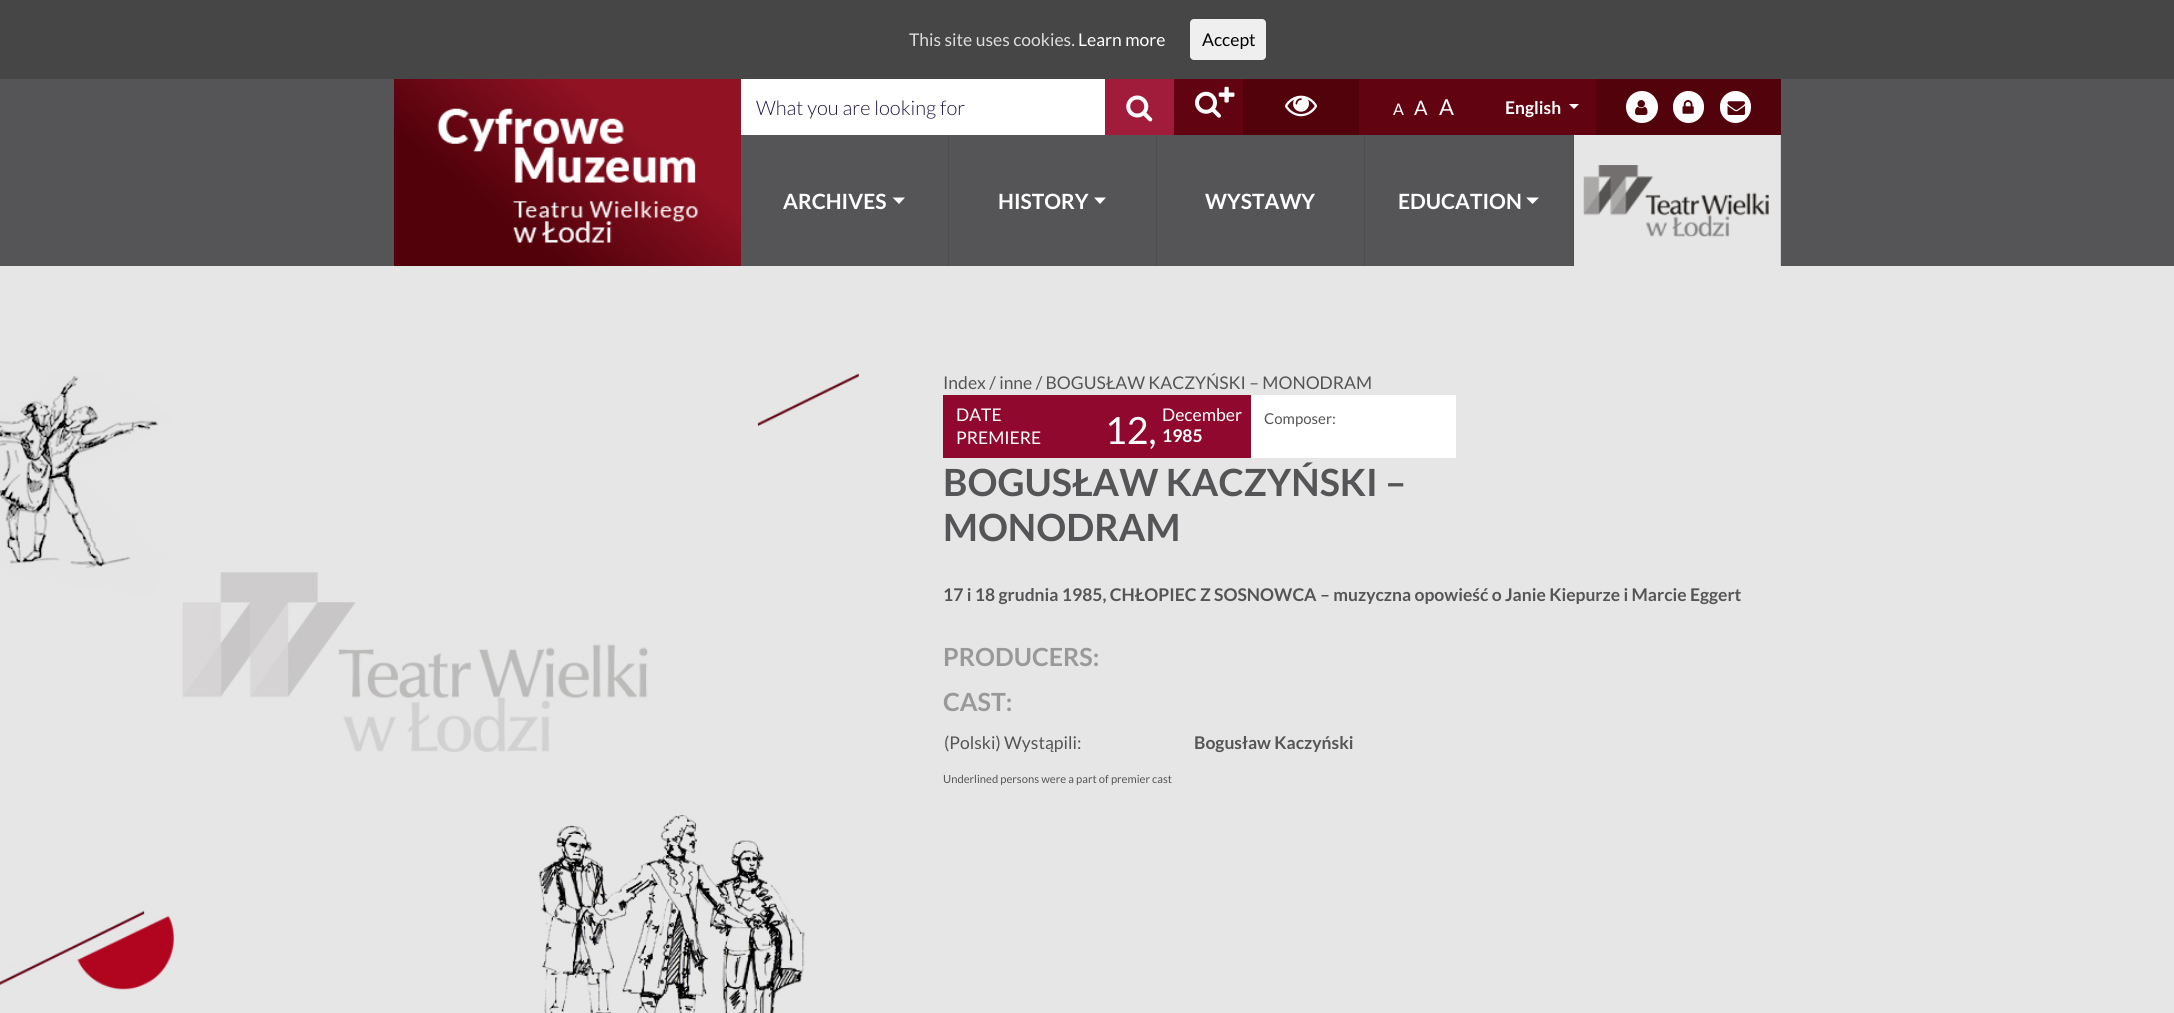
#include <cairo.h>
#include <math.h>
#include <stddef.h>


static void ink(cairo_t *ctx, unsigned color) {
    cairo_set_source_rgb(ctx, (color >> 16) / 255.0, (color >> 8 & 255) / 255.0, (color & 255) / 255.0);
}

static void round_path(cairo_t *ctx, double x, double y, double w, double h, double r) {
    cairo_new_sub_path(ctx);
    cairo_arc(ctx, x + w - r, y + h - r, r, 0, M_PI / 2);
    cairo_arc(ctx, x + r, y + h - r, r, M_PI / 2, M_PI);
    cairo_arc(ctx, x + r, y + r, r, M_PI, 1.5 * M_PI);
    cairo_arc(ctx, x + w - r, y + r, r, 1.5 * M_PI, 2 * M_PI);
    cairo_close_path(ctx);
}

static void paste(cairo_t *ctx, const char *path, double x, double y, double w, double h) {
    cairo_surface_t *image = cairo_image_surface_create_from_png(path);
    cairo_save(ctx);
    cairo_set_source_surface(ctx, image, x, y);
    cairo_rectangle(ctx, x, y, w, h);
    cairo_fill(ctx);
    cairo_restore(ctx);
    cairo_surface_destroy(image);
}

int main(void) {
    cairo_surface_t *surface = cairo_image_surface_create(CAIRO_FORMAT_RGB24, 2174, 1013);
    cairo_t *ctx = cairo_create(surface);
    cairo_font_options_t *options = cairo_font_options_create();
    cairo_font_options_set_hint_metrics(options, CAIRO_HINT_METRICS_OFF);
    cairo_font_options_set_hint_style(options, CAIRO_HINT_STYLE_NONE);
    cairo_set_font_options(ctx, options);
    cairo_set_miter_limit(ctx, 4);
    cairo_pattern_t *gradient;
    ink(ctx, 0x555557);
    cairo_paint(ctx);
    ink(ctx, 0x464646);
    cairo_rectangle(ctx, 0, 0, 2174, 79);
    cairo_fill(ctx);
    cairo_select_font_face(ctx, "Lato", CAIRO_FONT_SLANT_NORMAL, CAIRO_FONT_WEIGHT_NORMAL);
    cairo_set_font_size(ctx, 17.5);
    ink(ctx, 0xDDDDDD);
    cairo_move_to(ctx, 909, 46);
    cairo_show_text(ctx, "This site uses cookies.");
    ink(ctx, 0xFFFFFF);
    cairo_move_to(ctx, 1078, 46);
    cairo_show_text(ctx, "Learn more");
    ink(ctx, 0xEFEFEF);
    round_path(ctx, 1190, 19, 76, 41, 4);
    cairo_fill(ctx);
    ink(ctx, 0x000000);
    cairo_move_to(ctx, 1202, 46);
    cairo_show_text(ctx, "Accept");
    gradient = cairo_pattern_create_linear(456, 315, 679, 30);
    cairo_pattern_add_color_stop_rgba(gradient, 0.3, 0.322, 0.004, 0.043, 1);
    cairo_pattern_add_color_stop_rgba(gradient, 0.7, 0.565, 0.071, 0.137, 1);
    cairo_set_source(ctx, gradient);
    cairo_pattern_destroy(gradient);
    cairo_rectangle(ctx, 394, 79, 347, 187);
    cairo_fill(ctx);
    paste(ctx, "media/1.png", 437, 108, 261, 135);
    ink(ctx, 0xFFFFFF);
    cairo_rectangle(ctx, 741, 79, 364, 56);
    cairo_fill(ctx);
    cairo_select_font_face(ctx, "Lato Light", CAIRO_FONT_SLANT_NORMAL, CAIRO_FONT_WEIGHT_NORMAL);
    cairo_set_font_size(ctx, 20);
    ink(ctx, 0x1F1745);
    cairo_move_to(ctx, 756, 115);
    cairo_show_text(ctx, "What you are looking for");
    ink(ctx, 0xA11C3B);
    cairo_rectangle(ctx, 1105, 79, 69, 56);
    cairo_fill(ctx);
    paste(ctx, "media/2.png", 1126, 95, 27, 27);
    ink(ctx, 0x620311);
    cairo_rectangle(ctx, 1174, 79, 69, 56);
    cairo_fill(ctx);
    paste(ctx, "media/3.png", 1195, 91, 26, 27);
    paste(ctx, "media/4.png", 1218, 86, 17, 17);
    ink(ctx, 0x51020B);
    cairo_rectangle(ctx, 1243, 79, 116, 56);
    cairo_fill(ctx);
    paste(ctx, "media/5.png", 1285, 95, 32, 22);
    ink(ctx, 0x620311);
    cairo_rectangle(ctx, 1359, 79, 237, 56);
    cairo_fill(ctx);
    cairo_select_font_face(ctx, "Lato", CAIRO_FONT_SLANT_NORMAL, CAIRO_FONT_WEIGHT_NORMAL);
    cairo_set_font_size(ctx, 16);
    ink(ctx, 0xFFFFFF);
    cairo_move_to(ctx, 1393, 115);
    cairo_show_text(ctx, "A");
    cairo_set_font_size(ctx, 20);
    cairo_move_to(ctx, 1414, 115);
    cairo_show_text(ctx, "A");
    cairo_set_font_size(ctx, 22);
    cairo_move_to(ctx, 1439, 115);
    cairo_show_text(ctx, "A");
    cairo_select_font_face(ctx, "Lato", CAIRO_FONT_SLANT_NORMAL, CAIRO_FONT_WEIGHT_BOLD);
    cairo_set_font_size(ctx, 17.5);
    cairo_move_to(ctx, 1505, 114);
    cairo_show_text(ctx, "English");
    cairo_new_path(ctx);
    cairo_move_to(ctx, 1569, 104);
    cairo_line_to(ctx, 1579, 104);
    cairo_line_to(ctx, 1574, 109);
    cairo_close_path(ctx);
    cairo_fill(ctx);
    ink(ctx, 0x51020B);
    cairo_rectangle(ctx, 1596, 79, 185, 56);
    cairo_fill(ctx);
    ink(ctx, 0xFFFFFF);
    cairo_arc(ctx, 1642, 107, 16, 0, 2 * M_PI);
    cairo_fill(ctx);
    paste(ctx, "media/6.png", 1635, 100, 13, 15);
    round_path(ctx, 1673, 91, 31, 32, 15.5);
    cairo_fill(ctx);
    paste(ctx, "media/7.png", 1682, 100, 12, 14);
    round_path(ctx, 1720, 91, 31, 32, 15.5);
    cairo_fill(ctx);
    paste(ctx, "media/8.png", 1727, 101, 18, 14);
    ink(ctx, 0x4D4D4E);
    cairo_rectangle(ctx, 948, 135, 1, 131);
    cairo_fill(ctx);
    cairo_set_font_size(ctx, 21);
    ink(ctx, 0xFFFFFF);
    cairo_move_to(ctx, 783, 209);
    cairo_show_text(ctx, "ARCHIVES");
    cairo_new_path(ctx);
    cairo_move_to(ctx, 892.5, 197.5);
    cairo_line_to(ctx, 905, 197.5);
    cairo_line_to(ctx, 899, 204);
    cairo_close_path(ctx);
    cairo_fill(ctx);
    ink(ctx, 0x4D4D4E);
    cairo_rectangle(ctx, 1156, 135, 1, 131);
    cairo_fill(ctx);
    ink(ctx, 0xFFFFFF);
    cairo_move_to(ctx, 998, 209);
    cairo_show_text(ctx, "HISTORY");
    cairo_new_path(ctx);
    cairo_move_to(ctx, 1094, 197.5);
    cairo_line_to(ctx, 1106, 197.5);
    cairo_line_to(ctx, 1100, 204);
    cairo_close_path(ctx);
    cairo_fill(ctx);
    ink(ctx, 0x4D4D4E);
    cairo_rectangle(ctx, 1364, 135, 1, 131);
    cairo_fill(ctx);
    ink(ctx, 0xFFFFFF);
    cairo_move_to(ctx, 1205, 209);
    cairo_show_text(ctx, "WYSTAWY");
    ink(ctx, 0x4D4D4E);
    cairo_rectangle(ctx, 1573, 135, 1, 131);
    cairo_fill(ctx);
    ink(ctx, 0xFFFFFF);
    cairo_move_to(ctx, 1398, 209);
    cairo_show_text(ctx, "EDUCATION");
    cairo_new_path(ctx);
    cairo_move_to(ctx, 1526, 197.5);
    cairo_line_to(ctx, 1539, 197.5);
    cairo_line_to(ctx, 1532.5, 204);
    cairo_close_path(ctx);
    cairo_fill(ctx);
    ink(ctx, 0xE6E6E6);
    cairo_rectangle(ctx, 1574, 135, 206, 131);
    cairo_fill(ctx);
    paste(ctx, "media/9.png", 1583, 165, 186, 72);
    ink(ctx, 0xCFCFCF);
    cairo_rectangle(ctx, 1780, 135, 1, 131);
    cairo_fill(ctx);
    ink(ctx, 0xE6E6E6);
    cairo_rectangle(ctx, 0, 266, 2174, 747);
    cairo_fill(ctx);
    paste(ctx, "media/10.png", 0, 373, 859, 640);
    cairo_select_font_face(ctx, "Lato", CAIRO_FONT_SLANT_NORMAL, CAIRO_FONT_WEIGHT_NORMAL);
    cairo_set_font_size(ctx, 17.5);
    ink(ctx, 0x555557);
    cairo_move_to(ctx, 943, 389);
    cairo_show_text(ctx, "Index / inne / BOGUSŁAW KACZYŃSKI – MONODRAM");
    ink(ctx, 0x90082D);
    cairo_rectangle(ctx, 943, 395, 308, 63);
    cairo_fill(ctx);
    ink(ctx, 0xFFFFFF);
    cairo_move_to(ctx, 956, 421);
    cairo_show_text(ctx, "DATE");
    cairo_move_to(ctx, 956, 444);
    cairo_show_text(ctx, "PREMIERE");
    cairo_set_font_size(ctx, 37.5);
    cairo_move_to(ctx, 1105, 444);
    cairo_show_text(ctx, "12,");
    cairo_set_font_size(ctx, 17.5);
    cairo_move_to(ctx, 1162, 421);
    cairo_show_text(ctx, "December");
    cairo_select_font_face(ctx, "Lato", CAIRO_FONT_SLANT_NORMAL, CAIRO_FONT_WEIGHT_BOLD);
    cairo_move_to(ctx, 1162, 442);
    cairo_show_text(ctx, "1985");
    cairo_rectangle(ctx, 1251, 395, 205, 63);
    cairo_fill(ctx);
    cairo_select_font_face(ctx, "Lato", CAIRO_FONT_SLANT_NORMAL, CAIRO_FONT_WEIGHT_NORMAL);
    cairo_set_font_size(ctx, 15);
    ink(ctx, 0x555557);
    cairo_move_to(ctx, 1264, 424);
    cairo_show_text(ctx, "Composer:");
    cairo_select_font_face(ctx, "Lato", CAIRO_FONT_SLANT_NORMAL, CAIRO_FONT_WEIGHT_BOLD);
    cairo_set_font_size(ctx, 37.5);
    cairo_move_to(ctx, 943, 496);
    cairo_show_text(ctx, "BOGUSŁAW KACZYŃSKI –");
    cairo_move_to(ctx, 943, 541);
    cairo_show_text(ctx, "MONODRAM");
    cairo_set_font_size(ctx, 17.5);
    cairo_move_to(ctx, 943, 601);
    cairo_show_text(ctx, "17 i 18 grudnia 1985, CHŁOPIEC Z SOSNOWCA – muzyczna opowieść o Janie Kiepurze i Marcie Eggert");
    cairo_set_font_size(ctx, 25);
    ink(ctx, 0x999999);
    cairo_move_to(ctx, 943, 666);
    cairo_show_text(ctx, "PRODUCERS:");
    cairo_move_to(ctx, 943, 711);
    cairo_show_text(ctx, "CAST:");
    cairo_select_font_face(ctx, "Lato", CAIRO_FONT_SLANT_NORMAL, CAIRO_FONT_WEIGHT_NORMAL);
    cairo_set_font_size(ctx, 17.5);
    ink(ctx, 0x555557);
    cairo_move_to(ctx, 944, 749);
    cairo_show_text(ctx, "(Polski) Wystąpili:");
    cairo_select_font_face(ctx, "Lato", CAIRO_FONT_SLANT_NORMAL, CAIRO_FONT_WEIGHT_BOLD);
    cairo_move_to(ctx, 1194, 749);
    cairo_show_text(ctx, "Bogusław Kaczyński");
    cairo_select_font_face(ctx, "Lato", CAIRO_FONT_SLANT_NORMAL, CAIRO_FONT_WEIGHT_NORMAL);
    cairo_set_font_size(ctx, 11.2);
    cairo_move_to(ctx, 943, 783);
    cairo_show_text(ctx, "Underlined persons were a part of premier cast");
    cairo_surface_write_to_png(surface, "image.png");
    cairo_font_options_destroy(options);
    cairo_destroy(ctx);
    cairo_surface_destroy(surface);
    return 0;
}
